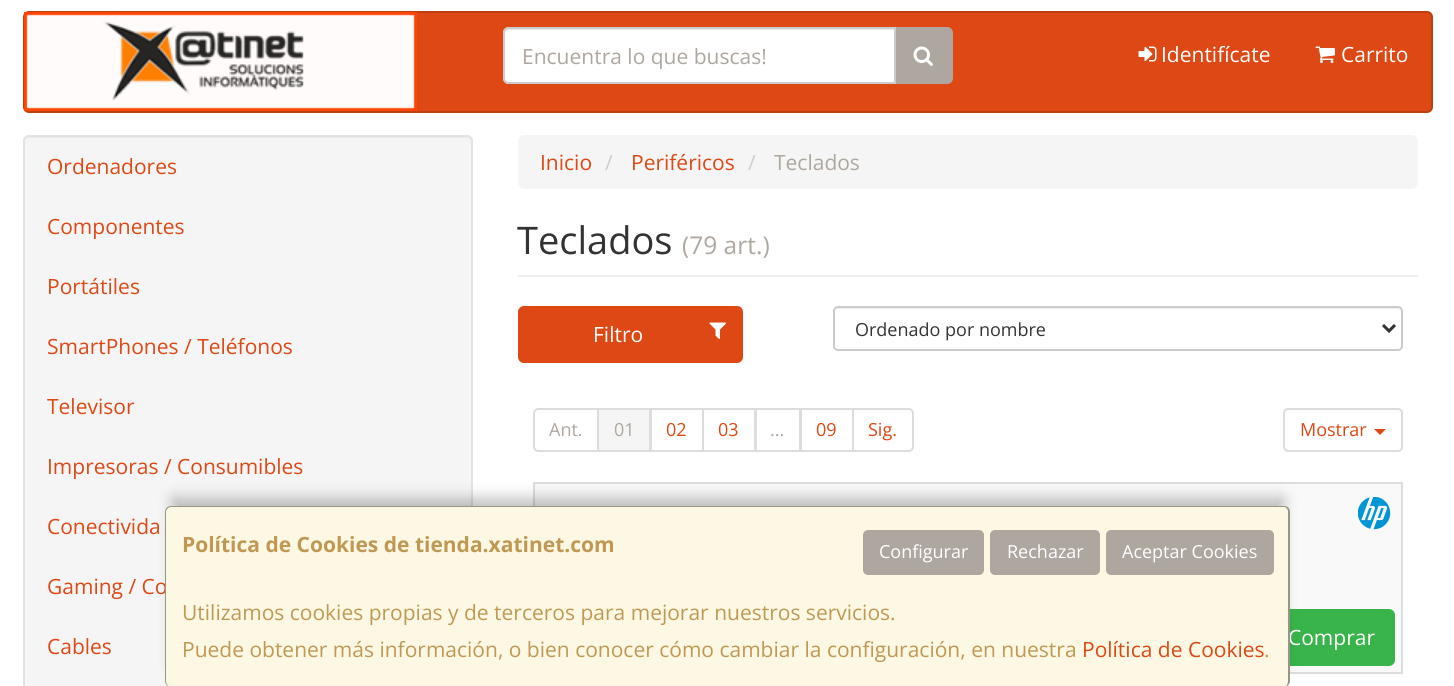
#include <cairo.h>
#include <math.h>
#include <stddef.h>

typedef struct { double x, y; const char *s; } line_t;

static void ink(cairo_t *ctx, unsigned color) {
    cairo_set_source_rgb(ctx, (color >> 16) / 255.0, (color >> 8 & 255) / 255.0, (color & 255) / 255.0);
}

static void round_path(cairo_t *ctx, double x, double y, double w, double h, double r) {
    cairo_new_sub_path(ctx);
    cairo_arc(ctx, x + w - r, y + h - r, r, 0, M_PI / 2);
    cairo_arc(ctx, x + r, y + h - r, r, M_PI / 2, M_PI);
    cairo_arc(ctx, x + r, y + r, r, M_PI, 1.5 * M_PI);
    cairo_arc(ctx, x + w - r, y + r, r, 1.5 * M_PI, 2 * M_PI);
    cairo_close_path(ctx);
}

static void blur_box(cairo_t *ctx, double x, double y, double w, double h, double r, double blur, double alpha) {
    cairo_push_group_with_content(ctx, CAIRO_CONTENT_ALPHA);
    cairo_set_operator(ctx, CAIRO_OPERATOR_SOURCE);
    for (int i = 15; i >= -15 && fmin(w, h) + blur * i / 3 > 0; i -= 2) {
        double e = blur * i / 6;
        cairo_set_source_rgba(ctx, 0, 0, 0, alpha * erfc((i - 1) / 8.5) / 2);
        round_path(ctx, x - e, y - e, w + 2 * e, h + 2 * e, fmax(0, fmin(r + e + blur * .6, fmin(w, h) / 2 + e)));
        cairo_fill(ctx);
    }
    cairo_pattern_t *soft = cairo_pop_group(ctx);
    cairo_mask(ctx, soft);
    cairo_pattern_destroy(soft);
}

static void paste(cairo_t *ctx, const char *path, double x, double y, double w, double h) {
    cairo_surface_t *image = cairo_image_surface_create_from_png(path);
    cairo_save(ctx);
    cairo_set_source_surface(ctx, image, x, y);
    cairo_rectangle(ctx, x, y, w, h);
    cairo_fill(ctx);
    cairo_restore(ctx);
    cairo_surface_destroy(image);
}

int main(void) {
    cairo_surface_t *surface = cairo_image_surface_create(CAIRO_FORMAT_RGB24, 1454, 686);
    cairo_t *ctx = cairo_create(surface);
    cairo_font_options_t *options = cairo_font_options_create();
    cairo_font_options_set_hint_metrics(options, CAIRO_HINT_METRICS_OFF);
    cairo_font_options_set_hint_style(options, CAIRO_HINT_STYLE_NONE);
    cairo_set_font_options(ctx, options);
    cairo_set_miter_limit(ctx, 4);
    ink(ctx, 0xFFFFFF);
    cairo_paint(ctx);
    ink(ctx, 0xDD4814);
    round_path(ctx, 24, 12, 1408, 100, 5);
    cairo_fill_preserve(ctx);
    ink(ctx, 0xBF3E11);
    cairo_stroke(ctx);
    paste(ctx, "media/1.png", 24, 12, 393, 99);
    ink(ctx, 0xAEA79F);
    cairo_new_path(ctx);
    cairo_move_to(ctx, 895, 28);
    cairo_line_to(ctx, 947, 28);
    cairo_curve_to(ctx, 950, 28, 952, 30, 952, 33);
    cairo_line_to(ctx, 952, 78);
    cairo_curve_to(ctx, 952, 81, 950, 83, 947, 83);
    cairo_line_to(ctx, 895, 83);
    cairo_close_path(ctx);
    cairo_fill_preserve(ctx);
    cairo_stroke(ctx);
    ink(ctx, 0xFFFFFF);
    cairo_new_path(ctx);
    cairo_move_to(ctx, 509, 27);
    cairo_line_to(ctx, 896, 27);
    cairo_line_to(ctx, 896, 84);
    cairo_line_to(ctx, 509, 84);
    cairo_curve_to(ctx, 505.5, 84, 503, 81.5, 503, 78);
    cairo_line_to(ctx, 503, 33);
    cairo_curve_to(ctx, 503, 29.5, 505.5, 27, 509, 27);
    cairo_close_path(ctx);
    cairo_fill(ctx);
    ink(ctx, 0xECECEC);
    cairo_new_path(ctx);
    cairo_move_to(ctx, 508, 30);
    cairo_line_to(ctx, 894, 30);
    cairo_line_to(ctx, 894, 29);
    cairo_line_to(ctx, 509, 29);
    cairo_curve_to(ctx, 506, 29, 504, 31, 504, 34);
    cairo_curve_to(ctx, 504, 32, 506, 30, 508, 30);
    cairo_close_path(ctx);
    cairo_fill(ctx);
    cairo_new_path(ctx);
    cairo_move_to(ctx, 509, 28);
    cairo_line_to(ctx, 895, 28);
    cairo_line_to(ctx, 895, 83);
    cairo_line_to(ctx, 509, 83);
    cairo_curve_to(ctx, 506, 83, 504, 81, 504, 78);
    cairo_line_to(ctx, 504, 33);
    cairo_curve_to(ctx, 504, 30, 506, 28, 509, 28);
    cairo_close_path(ctx);
    ink(ctx, 0xCCCCCC);
    cairo_stroke(ctx);
    cairo_select_font_face(ctx, "Open Sans", CAIRO_FONT_SLANT_NORMAL, CAIRO_FONT_WEIGHT_NORMAL);
    cairo_set_font_size(ctx, 21);
    ink(ctx, 0xAEA79F);
    cairo_move_to(ctx, 522, 64);
    cairo_show_text(ctx, "Encuentra lo que buscas!");
    paste(ctx, "media/2.png", 913, 46, 20, 20);
    paste(ctx, "media/3.png", 1138, 46, 19, 16);
    ink(ctx, 0xFFFFFF);
    cairo_move_to(ctx, 1161, 62);
    cairo_show_text(ctx, "Identifícate");
    paste(ctx, "media/4.png", 1315, 46, 20, 17);
    cairo_move_to(ctx, 1341, 62);
    cairo_show_text(ctx, "Carrito");
    ink(ctx, 0xF5F5F5);
    round_path(ctx, 23, 135, 450, 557, 6);
    cairo_fill(ctx);
    ink(ctx, 0xE9E9E9);
    cairo_new_path(ctx);
    cairo_move_to(ctx, 28, 138);
    cairo_line_to(ctx, 466, 138);
    cairo_curve_to(ctx, 469, 138, 471, 140, 471, 142);
    cairo_curve_to(ctx, 471, 139, 469, 137, 466, 137);
    cairo_line_to(ctx, 29, 137);
    cairo_curve_to(ctx, 26, 137, 24, 139, 24, 142);
    cairo_curve_to(ctx, 24, 140, 26, 138, 28, 138);
    cairo_close_path(ctx);
    cairo_fill(ctx);
    round_path(ctx, 24, 136, 448, 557, 5);
    ink(ctx, 0xE3E3E3);
    cairo_stroke(ctx);
    ink(ctx, 0xDD4814);
    {
        static const line_t items[] = {
            {47, 174, "Ordenadores"},
            {47, 234, "Componentes"},
            {47, 294, "Portátiles"},
            {47, 354, "SmartPhones / Teléfonos"},
            {47, 414, "Televisor"},
            {47, 474, "Impresoras / Consumibles"},
            {47, 534, "Conectivida"},
            {47, 594, "Gaming / Co"},
            {47, 654, "Cables"},
        };
        for (size_t i = 0; i < sizeof items / sizeof *items; i++) {
            cairo_move_to(ctx, items[i].x, items[i].y);
            cairo_show_text(ctx, items[i].s);
        }
    }
    ink(ctx, 0xF5F5F5);
    round_path(ctx, 518, 135, 900, 54, 6);
    cairo_fill(ctx);
    ink(ctx, 0xDD4814);
    cairo_move_to(ctx, 540, 170);
    cairo_show_text(ctx, "Inicio");
    ink(ctx, 0xCCCCCC);
    cairo_move_to(ctx, 605, 170);
    cairo_show_text(ctx, "/");
    ink(ctx, 0xDD4814);
    cairo_move_to(ctx, 631, 170);
    cairo_show_text(ctx, "Periféricos");
    ink(ctx, 0xCCCCCC);
    cairo_move_to(ctx, 748, 170);
    cairo_show_text(ctx, "/");
    ink(ctx, 0xAEA79F);
    cairo_move_to(ctx, 774, 170);
    cairo_show_text(ctx, "Teclados");
    ink(ctx, 0xEEEEEE);
    cairo_rectangle(ctx, 518, 275, 900, 2);
    cairo_fill(ctx);
    cairo_set_font_size(ctx, 38);
    ink(ctx, 0x333333);
    cairo_move_to(ctx, 517, 254);
    cairo_show_text(ctx, "Teclados");
    cairo_set_font_size(ctx, 24.5);
    ink(ctx, 0xAEA79F);
    cairo_move_to(ctx, 682, 254);
    cairo_show_text(ctx, "(79 art.)");
    ink(ctx, 0xDD4814);
    round_path(ctx, 519, 307, 223, 55, 5);
    cairo_fill_preserve(ctx);
    cairo_stroke(ctx);
    cairo_set_font_size(ctx, 21);
    ink(ctx, 0xFFFFFF);
    cairo_move_to(ctx, 593, 342);
    cairo_show_text(ctx, "Filtro");
    paste(ctx, "media/5.png", 709, 322, 17, 17);
    ink(ctx, 0xECECEC);
    cairo_new_path(ctx);
    cairo_move_to(ctx, 837, 309);
    cairo_line_to(ctx, 1398, 309);
    cairo_curve_to(ctx, 1400, 309, 1401, 310, 1401, 312);
    cairo_line_to(ctx, 1401, 311);
    cairo_curve_to(ctx, 1401, 309, 1400, 308, 1398, 308);
    cairo_line_to(ctx, 837, 308);
    cairo_curve_to(ctx, 835, 308, 834, 309, 834, 311);
    cairo_line_to(ctx, 834, 312);
    cairo_curve_to(ctx, 834, 310, 835, 309, 837, 309);
    cairo_close_path(ctx);
    cairo_fill(ctx);
    round_path(ctx, 834, 307, 568, 43, 4);
    ink(ctx, 0xCCCCCC);
    cairo_stroke(ctx);
    cairo_new_path(ctx);
    cairo_move_to(ctx, 1383, 325);
    cairo_line_to(ctx, 1389, 331);
    cairo_line_to(ctx, 1395, 325);
    ink(ctx, 0x333333);
    cairo_set_line_width(ctx, 3);
    cairo_stroke(ctx);
    cairo_set_font_size(ctx, 18);
    cairo_move_to(ctx, 855, 336);
    cairo_show_text(ctx, "Ordenado por nombre");
    cairo_new_path(ctx);
    cairo_move_to(ctx, 538, 409);
    cairo_line_to(ctx, 598, 409);
    cairo_line_to(ctx, 598, 451);
    cairo_line_to(ctx, 538, 451);
    cairo_curve_to(ctx, 536, 451, 534, 449, 534, 447);
    cairo_line_to(ctx, 534, 413);
    cairo_curve_to(ctx, 534, 411, 536, 409, 538, 409);
    cairo_close_path(ctx);
    ink(ctx, 0xDDDDDD);
    cairo_set_line_width(ctx, 2);
    cairo_stroke(ctx);
    ink(ctx, 0xAEA79F);
    cairo_move_to(ctx, 549, 436);
    cairo_show_text(ctx, "Ant.");
    cairo_rectangle(ctx, 651, 409, 52, 42);
    ink(ctx, 0xDDDDDD);
    cairo_stroke(ctx);
    ink(ctx, 0xF5F5F5);
    cairo_rectangle(ctx, 598, 409, 52, 42);
    cairo_fill_preserve(ctx);
    ink(ctx, 0xDDDDDD);
    cairo_stroke(ctx);
    ink(ctx, 0xAEA79F);
    cairo_move_to(ctx, 614, 436);
    cairo_show_text(ctx, "01");
    ink(ctx, 0xDD4814);
    cairo_move_to(ctx, 666, 436);
    cairo_show_text(ctx, "02");
    cairo_rectangle(ctx, 703, 409, 52, 42);
    ink(ctx, 0xDDDDDD);
    cairo_stroke(ctx);
    ink(ctx, 0xDD4814);
    cairo_move_to(ctx, 718, 436);
    cairo_show_text(ctx, "03");
    cairo_rectangle(ctx, 756, 409, 44, 42);
    ink(ctx, 0xDDDDDD);
    cairo_stroke(ctx);
    ink(ctx, 0xAEA79F);
    cairo_move_to(ctx, 770, 436);
    cairo_show_text(ctx, "...");
    cairo_rectangle(ctx, 801, 409, 52, 42);
    ink(ctx, 0xDDDDDD);
    cairo_stroke(ctx);
    ink(ctx, 0xDD4814);
    cairo_move_to(ctx, 816, 436);
    cairo_show_text(ctx, "09");
    ink(ctx, 0xFFFFFF);
    cairo_new_path(ctx);
    cairo_move_to(ctx, 853, 409);
    cairo_line_to(ctx, 909, 409);
    cairo_curve_to(ctx, 911, 409, 913, 411, 913, 413);
    cairo_line_to(ctx, 913, 447);
    cairo_curve_to(ctx, 913, 449, 911, 451, 909, 451);
    cairo_line_to(ctx, 853, 451);
    cairo_close_path(ctx);
    cairo_fill_preserve(ctx);
    ink(ctx, 0xDDDDDD);
    cairo_stroke(ctx);
    ink(ctx, 0xDD4814);
    cairo_move_to(ctx, 868, 436);
    cairo_show_text(ctx, "Sig.");
    round_path(ctx, 1284, 409, 118, 42, 4);
    ink(ctx, 0xDDDDDD);
    cairo_stroke(ctx);
    ink(ctx, 0xDD4814);
    cairo_move_to(ctx, 1300, 436);
    cairo_show_text(ctx, "Mostrar");
    cairo_new_path(ctx);
    cairo_move_to(ctx, 1374, 429);
    cairo_line_to(ctx, 1386, 429);
    cairo_line_to(ctx, 1380, 435);
    cairo_close_path(ctx);
    cairo_fill(ctx);
    ink(ctx, 0xF9F9F9);
    cairo_rectangle(ctx, 534, 483, 868, 190);
    cairo_fill_preserve(ctx);
    ink(ctx, 0xDDDDDD);
    cairo_stroke(ctx);
    paste(ctx, "media/6.png", 1358, 497, 33, 33);
    ink(ctx, 0x38B44A);
    round_path(ctx, 1270, 610, 124, 55, 5);
    cairo_fill_preserve(ctx);
    cairo_stroke(ctx);
    cairo_set_font_size(ctx, 21);
    ink(ctx, 0xFFFFFF);
    cairo_move_to(ctx, 1288, 645);
    cairo_show_text(ctx, "Comprar");
    ink(ctx, 0x000000);
    blur_box(ctx, 173, 498, 1110, 167, 0, 7.5, 0.25);
    ink(ctx, 0xFCF8E3);
    round_path(ctx, 165, 506, 1125, 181, 6);
    cairo_fill(ctx);
    cairo_set_source_rgba(ctx, 0, 0, 0, 0.4);
    cairo_set_fill_rule(ctx, CAIRO_FILL_RULE_EVEN_ODD);
    cairo_new_path(ctx);
    cairo_move_to(ctx, 171, 506);
    cairo_line_to(ctx, 1284, 506);
    cairo_curve_to(ctx, 1287, 506, 1290, 508, 1290, 512);
    cairo_line_to(ctx, 1290, 681);
    cairo_curve_to(ctx, 1290, 684, 1287, 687, 1284, 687);
    cairo_line_to(ctx, 171, 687);
    cairo_curve_to(ctx, 168, 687, 165, 684, 165, 681);
    cairo_line_to(ctx, 165, 512);
    cairo_curve_to(ctx, 165, 508, 168, 506, 171, 506);
    cairo_close_path(ctx);
    cairo_move_to(ctx, 171, 507);
    cairo_line_to(ctx, 1284, 507);
    cairo_curve_to(ctx, 1286, 507, 1288, 509, 1288, 512);
    cairo_line_to(ctx, 1288, 681);
    cairo_curve_to(ctx, 1288, 684, 1286, 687, 1284, 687);
    cairo_line_to(ctx, 171, 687);
    cairo_curve_to(ctx, 169, 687, 166, 684, 166, 681);
    cairo_line_to(ctx, 166, 512);
    cairo_curve_to(ctx, 166, 509, 169, 507, 171, 507);
    cairo_close_path(ctx);
    cairo_fill(ctx);
    cairo_select_font_face(ctx, "Open Sans", CAIRO_FONT_SLANT_NORMAL, CAIRO_FONT_WEIGHT_BOLD);
    ink(ctx, 0xC09853);
    cairo_move_to(ctx, 182, 552);
    cairo_show_text(ctx, "Política de Cookies de tienda.xatinet.com");
    ink(ctx, 0xAEA79F);
    round_path(ctx, 864, 531, 119, 43, 4);
    cairo_fill_preserve(ctx);
    cairo_stroke(ctx);
    cairo_select_font_face(ctx, "Open Sans", CAIRO_FONT_SLANT_NORMAL, CAIRO_FONT_WEIGHT_NORMAL);
    cairo_set_font_size(ctx, 18);
    ink(ctx, 0xFFFFFF);
    cairo_move_to(ctx, 879, 558);
    cairo_show_text(ctx, "Configurar");
    ink(ctx, 0xAEA79F);
    round_path(ctx, 991, 531, 108, 43, 4);
    cairo_fill_preserve(ctx);
    cairo_stroke(ctx);
    ink(ctx, 0xFFFFFF);
    cairo_move_to(ctx, 1007, 558);
    cairo_show_text(ctx, "Rechazar");
    ink(ctx, 0xAEA79F);
    round_path(ctx, 1107, 531, 166, 43, 4);
    cairo_fill_preserve(ctx);
    cairo_stroke(ctx);
    ink(ctx, 0xFFFFFF);
    cairo_move_to(ctx, 1122, 558);
    cairo_show_text(ctx, "Aceptar Cookies");
    cairo_set_font_size(ctx, 21);
    ink(ctx, 0xC09853);
    cairo_move_to(ctx, 182, 620);
    cairo_show_text(ctx, "Utilizamos cookies propias y de terceros para mejorar nuestros servicios.");
    cairo_move_to(ctx, 182, 657);
    cairo_show_text(ctx, "Puede obtener más información, o bien conocer cómo cambiar la configuración, en nuestra");
    ink(ctx, 0xDD4814);
    cairo_move_to(ctx, 1082, 657);
    cairo_show_text(ctx, "Política de Cookies");
    ink(ctx, 0xC09853);
    cairo_move_to(ctx, 1264, 657);
    cairo_show_text(ctx, ".");
    cairo_surface_write_to_png(surface, "image.png");
    cairo_font_options_destroy(options);
    cairo_destroy(ctx);
    cairo_surface_destroy(surface);
    return 0;
}
